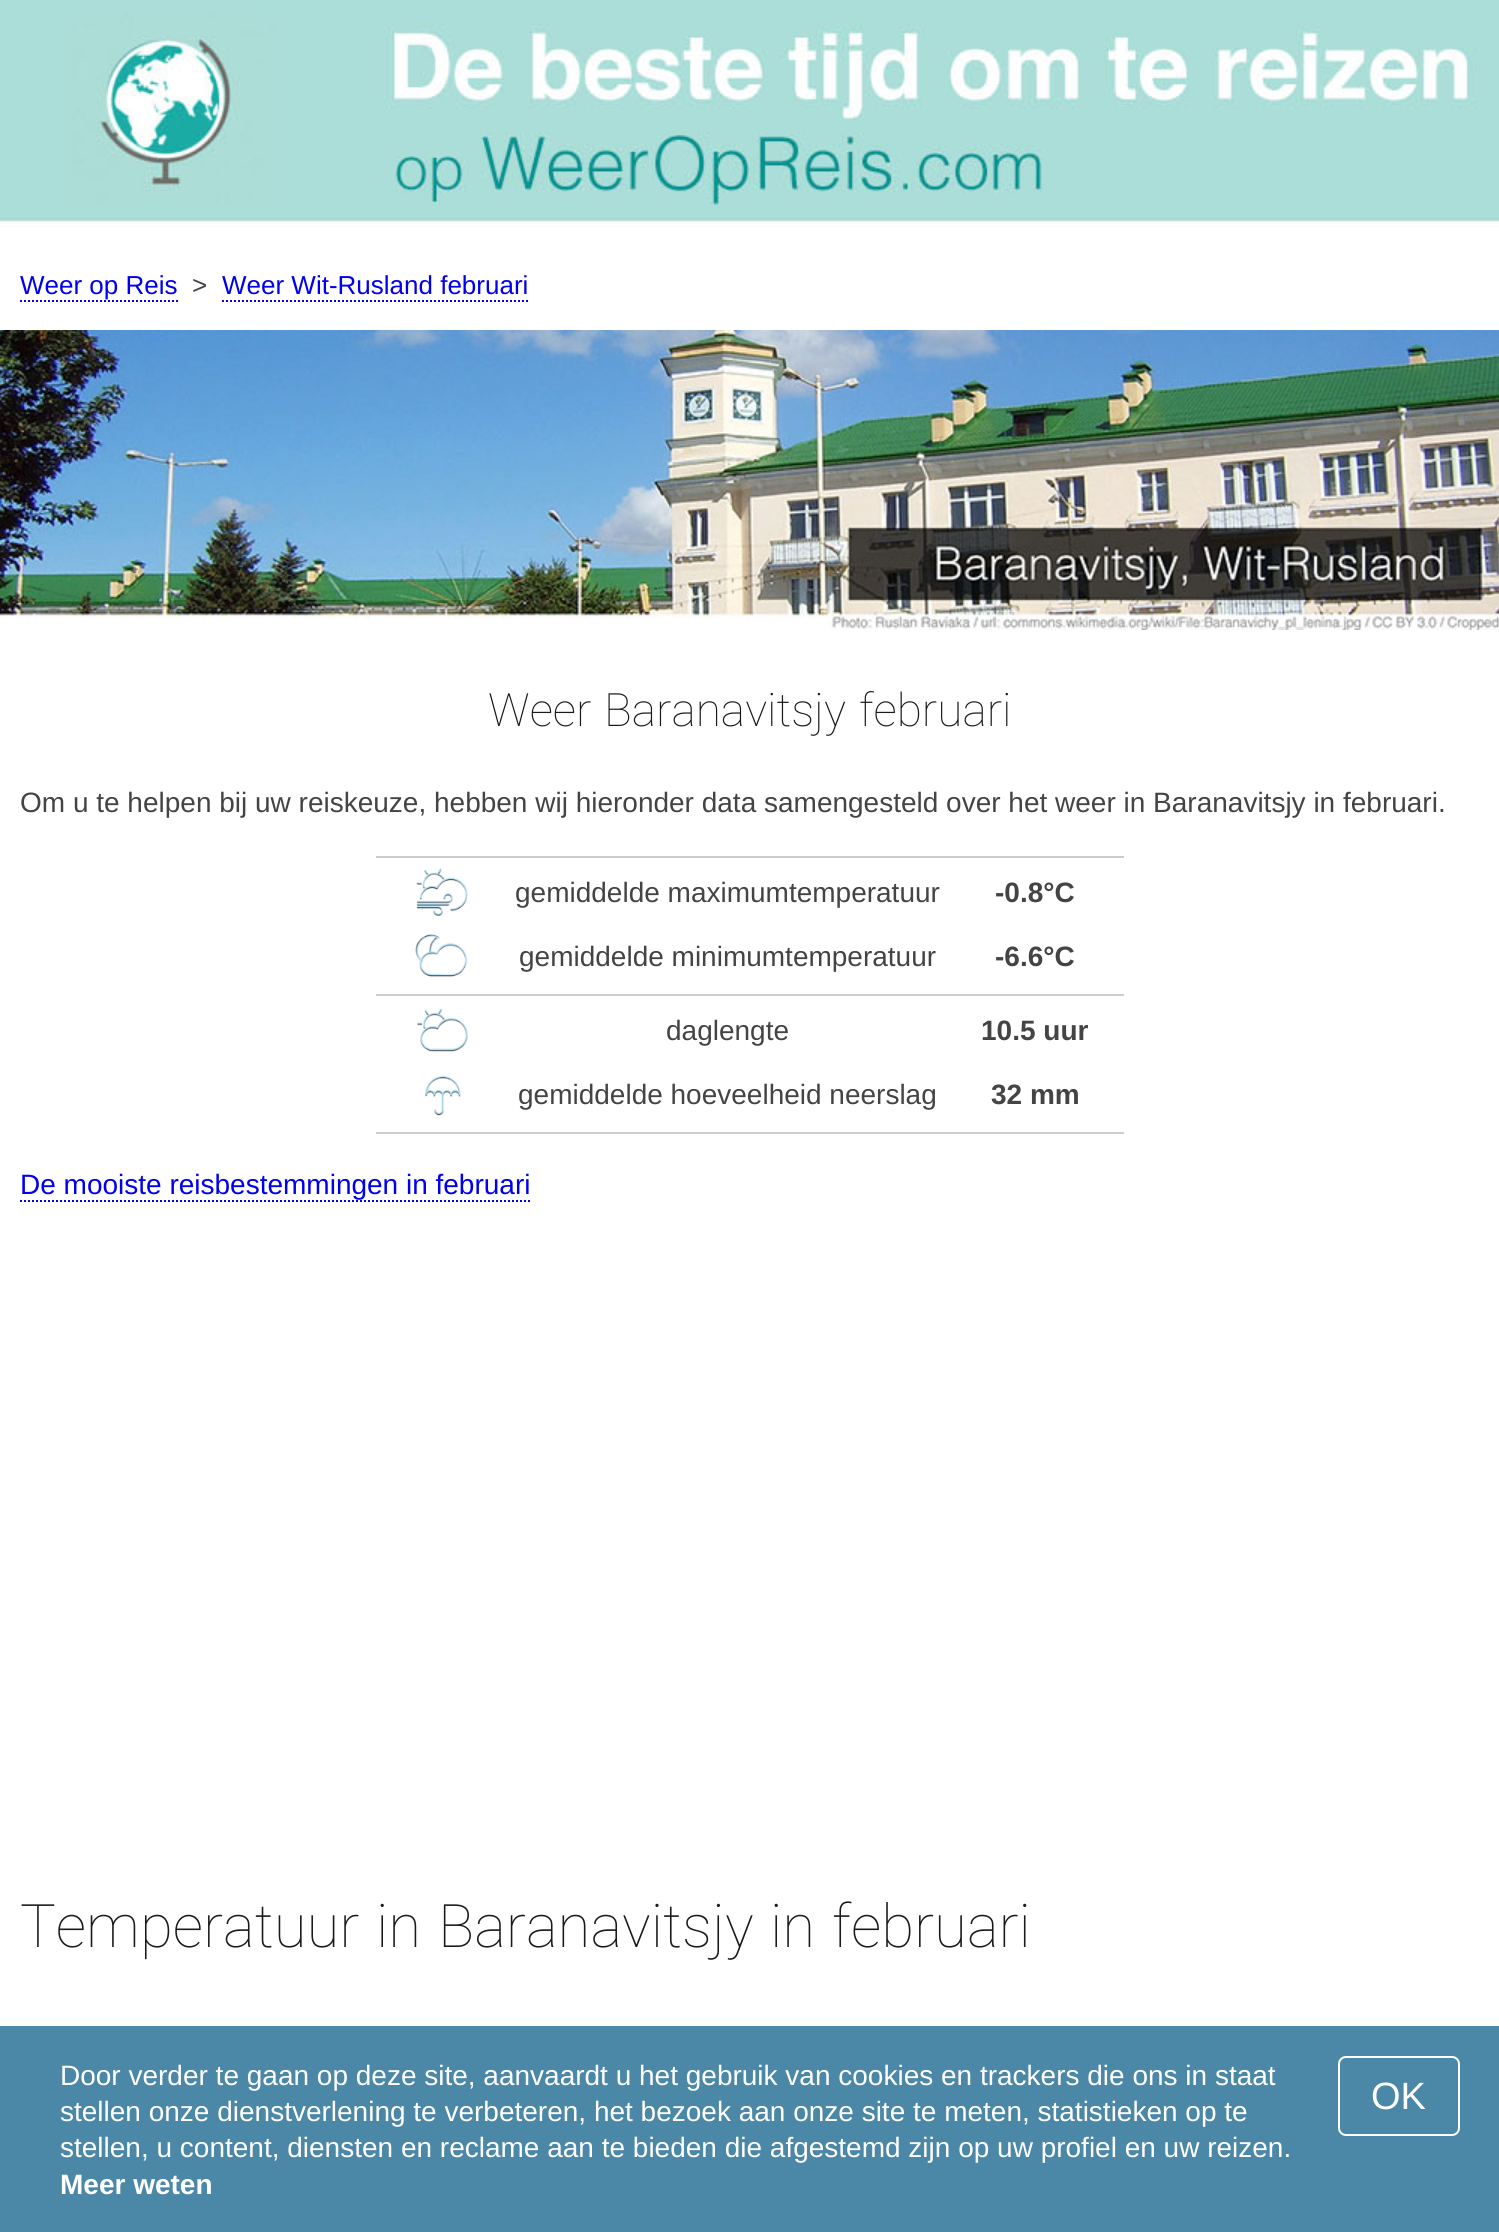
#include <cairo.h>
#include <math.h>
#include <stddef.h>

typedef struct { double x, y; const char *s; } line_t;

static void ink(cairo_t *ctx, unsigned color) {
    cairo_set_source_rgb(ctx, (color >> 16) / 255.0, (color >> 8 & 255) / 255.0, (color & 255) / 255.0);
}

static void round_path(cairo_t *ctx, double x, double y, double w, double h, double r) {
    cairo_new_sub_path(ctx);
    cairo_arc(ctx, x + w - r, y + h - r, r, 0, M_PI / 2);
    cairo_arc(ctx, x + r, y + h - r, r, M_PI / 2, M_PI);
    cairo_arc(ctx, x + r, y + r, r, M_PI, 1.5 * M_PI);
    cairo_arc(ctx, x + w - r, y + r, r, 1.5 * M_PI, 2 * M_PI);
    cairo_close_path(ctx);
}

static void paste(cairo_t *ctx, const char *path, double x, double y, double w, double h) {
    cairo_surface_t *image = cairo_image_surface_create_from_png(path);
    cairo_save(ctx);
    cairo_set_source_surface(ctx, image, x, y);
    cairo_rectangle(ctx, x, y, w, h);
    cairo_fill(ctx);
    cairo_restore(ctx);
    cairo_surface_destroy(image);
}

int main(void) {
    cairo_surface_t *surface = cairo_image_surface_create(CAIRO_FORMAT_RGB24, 1499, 2232);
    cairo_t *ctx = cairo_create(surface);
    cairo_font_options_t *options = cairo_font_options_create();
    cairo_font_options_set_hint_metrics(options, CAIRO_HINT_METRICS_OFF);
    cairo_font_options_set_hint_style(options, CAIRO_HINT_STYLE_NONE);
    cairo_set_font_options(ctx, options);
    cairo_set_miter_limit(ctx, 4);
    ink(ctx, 0xFFFFFF);
    cairo_paint(ctx);
    paste(ctx, "media/1.png", 0, 0, 1499, 227);
    cairo_select_font_face(ctx, "Liberation Sans", CAIRO_FONT_SLANT_NORMAL, CAIRO_FONT_WEIGHT_NORMAL);
    cairo_set_font_size(ctx, 26);
    ink(ctx, 0x0000EE);
    cairo_move_to(ctx, 20, 294);
    cairo_show_text(ctx, "Weer op Reis");
    cairo_new_path(ctx);
    cairo_move_to(ctx, 20, 301);
    cairo_line_to(ctx, 178, 301);
    cairo_set_dash(ctx, (double[]){2, 2}, 2, 0);
    cairo_stroke(ctx);
    ink(ctx, 0x444444);
    cairo_move_to(ctx, 192, 294);
    cairo_show_text(ctx, ">");
    ink(ctx, 0x0000EE);
    cairo_move_to(ctx, 222, 294);
    cairo_show_text(ctx, "Weer Wit-Rusland februari");
    cairo_new_path(ctx);
    cairo_move_to(ctx, 222, 301);
    cairo_line_to(ctx, 528, 301);
    cairo_stroke(ctx);
    paste(ctx, "media/2.png", 0, 330, 1499, 300);
    cairo_select_font_face(ctx, "Roboto Thin", CAIRO_FONT_SLANT_NORMAL, CAIRO_FONT_WEIGHT_NORMAL);
    cairo_set_font_size(ctx, 46);
    ink(ctx, 0x1A1A1A);
    {
        static const line_t items[] = {
            {488, 726, "Weer"},
            {604, 726, "Baranavitsjy"},
            {859, 726, "februari"},
        };
        for (size_t i = 0; i < sizeof items / sizeof *items; i++) {
            cairo_move_to(ctx, items[i].x, items[i].y);
            cairo_show_text(ctx, items[i].s);
        }
    }
    cairo_select_font_face(ctx, "Liberation Sans", CAIRO_FONT_SLANT_NORMAL, CAIRO_FONT_WEIGHT_NORMAL);
    cairo_set_font_size(ctx, 28);
    ink(ctx, 0x444444);
    cairo_move_to(ctx, 20, 812);
    cairo_show_text(ctx, "Om u te helpen bij uw reiskeuze, hebben wij hieronder data samengesteld over het weer in Baranavitsjy in februari.");
    ink(ctx, 0xCCCCCC);
    cairo_rectangle(ctx, 376, 856, 748, 2);
    cairo_fill(ctx);
    paste(ctx, "media/3.png", 416, 868, 52, 48);
    ink(ctx, 0x444444);
    cairo_move_to(ctx, 515, 902);
    cairo_show_text(ctx, "gemiddelde maximumtemperatuur");
    cairo_select_font_face(ctx, "Liberation Sans", CAIRO_FONT_SLANT_NORMAL, CAIRO_FONT_WEIGHT_BOLD);
    cairo_move_to(ctx, 995, 902);
    cairo_show_text(ctx, "-0.8°C");
    paste(ctx, "media/4.png", 415, 934, 53, 43);
    cairo_select_font_face(ctx, "Liberation Sans", CAIRO_FONT_SLANT_NORMAL, CAIRO_FONT_WEIGHT_NORMAL);
    cairo_move_to(ctx, 519, 966);
    cairo_show_text(ctx, "gemiddelde minimumtemperatuur");
    cairo_select_font_face(ctx, "Liberation Sans", CAIRO_FONT_SLANT_NORMAL, CAIRO_FONT_WEIGHT_BOLD);
    cairo_move_to(ctx, 995, 966);
    cairo_show_text(ctx, "-6.6°C");
    ink(ctx, 0xCCCCCC);
    cairo_rectangle(ctx, 376, 994, 748, 2);
    cairo_fill(ctx);
    paste(ctx, "media/5.png", 417, 1008, 51, 44);
    cairo_select_font_face(ctx, "Liberation Sans", CAIRO_FONT_SLANT_NORMAL, CAIRO_FONT_WEIGHT_NORMAL);
    ink(ctx, 0x444444);
    cairo_move_to(ctx, 666, 1040);
    cairo_show_text(ctx, "daglengte");
    cairo_select_font_face(ctx, "Liberation Sans", CAIRO_FONT_SLANT_NORMAL, CAIRO_FONT_WEIGHT_BOLD);
    cairo_move_to(ctx, 981, 1040);
    cairo_show_text(ctx, "10.5 uur");
    paste(ctx, "media/6.png", 425, 1075, 36, 41);
    cairo_select_font_face(ctx, "Liberation Sans", CAIRO_FONT_SLANT_NORMAL, CAIRO_FONT_WEIGHT_NORMAL);
    cairo_move_to(ctx, 518, 1104);
    cairo_show_text(ctx, "gemiddelde hoeveelheid neerslag");
    cairo_select_font_face(ctx, "Liberation Sans", CAIRO_FONT_SLANT_NORMAL, CAIRO_FONT_WEIGHT_BOLD);
    cairo_move_to(ctx, 991, 1104);
    cairo_show_text(ctx, "32 mm");
    ink(ctx, 0xCCCCCC);
    cairo_rectangle(ctx, 376, 1132, 748, 2);
    cairo_fill(ctx);
    cairo_select_font_face(ctx, "Liberation Sans", CAIRO_FONT_SLANT_NORMAL, CAIRO_FONT_WEIGHT_NORMAL);
    ink(ctx, 0x0000EE);
    cairo_move_to(ctx, 20, 1194);
    cairo_show_text(ctx, "De mooiste reisbestemmingen in februari");
    cairo_new_path(ctx);
    cairo_move_to(ctx, 20, 1201);
    cairo_line_to(ctx, 530, 1201);
    cairo_stroke(ctx);
    cairo_select_font_face(ctx, "Roboto Thin", CAIRO_FONT_SLANT_NORMAL, CAIRO_FONT_WEIGHT_NORMAL);
    cairo_set_font_size(ctx, 60);
    ink(ctx, 0x1A1A1A);
    {
        static const line_t items[] = {
            {20, 1947, "Temperatuur"},
            {376, 1947, "in"},
            {438, 1947, "Baranavitsjy"},
            {770, 1947, "in"},
            {832, 1947, "februari"},
        };
        for (size_t i = 0; i < sizeof items / sizeof *items; i++) {
            cairo_move_to(ctx, items[i].x, items[i].y);
            cairo_show_text(ctx, items[i].s);
        }
    }
    ink(ctx, 0x4B87A7);
    cairo_rectangle(ctx, 0, 2026, 1499, 206);
    cairo_fill(ctx);
    cairo_select_font_face(ctx, "Liberation Sans", CAIRO_FONT_SLANT_NORMAL, CAIRO_FONT_WEIGHT_NORMAL);
    cairo_set_font_size(ctx, 28);
    ink(ctx, 0xFFFFFF);
    {
        static const line_t items[] = {
            {60, 2085, "Door verder te gaan op deze site, aanvaardt u het gebruik van cookies en trackers die ons in staat"},
            {60, 2121, "stellen onze dienstverlening te verbeteren, het bezoek aan onze site te meten, statistieken op te"},
            {60, 2157, "stellen, u content, diensten en reclame aan te bieden die afgestemd zijn op uw profiel en uw reizen."},
        };
        for (size_t i = 0; i < sizeof items / sizeof *items; i++) {
            cairo_move_to(ctx, items[i].x, items[i].y);
            cairo_show_text(ctx, items[i].s);
        }
    }
    cairo_select_font_face(ctx, "Liberation Sans", CAIRO_FONT_SLANT_NORMAL, CAIRO_FONT_WEIGHT_BOLD);
    cairo_move_to(ctx, 60, 2194);
    cairo_show_text(ctx, "Meer weten");
    round_path(ctx, 1339, 2057, 120, 78, 7);
    cairo_set_dash(ctx, NULL, 0, 0);
    cairo_stroke(ctx);
    cairo_select_font_face(ctx, "Liberation Sans", CAIRO_FONT_SLANT_NORMAL, CAIRO_FONT_WEIGHT_NORMAL);
    cairo_set_font_size(ctx, 38);
    cairo_move_to(ctx, 1371, 2109);
    cairo_show_text(ctx, "OK");
    cairo_surface_write_to_png(surface, "image.png");
    cairo_font_options_destroy(options);
    cairo_destroy(ctx);
    cairo_surface_destroy(surface);
    return 0;
}
